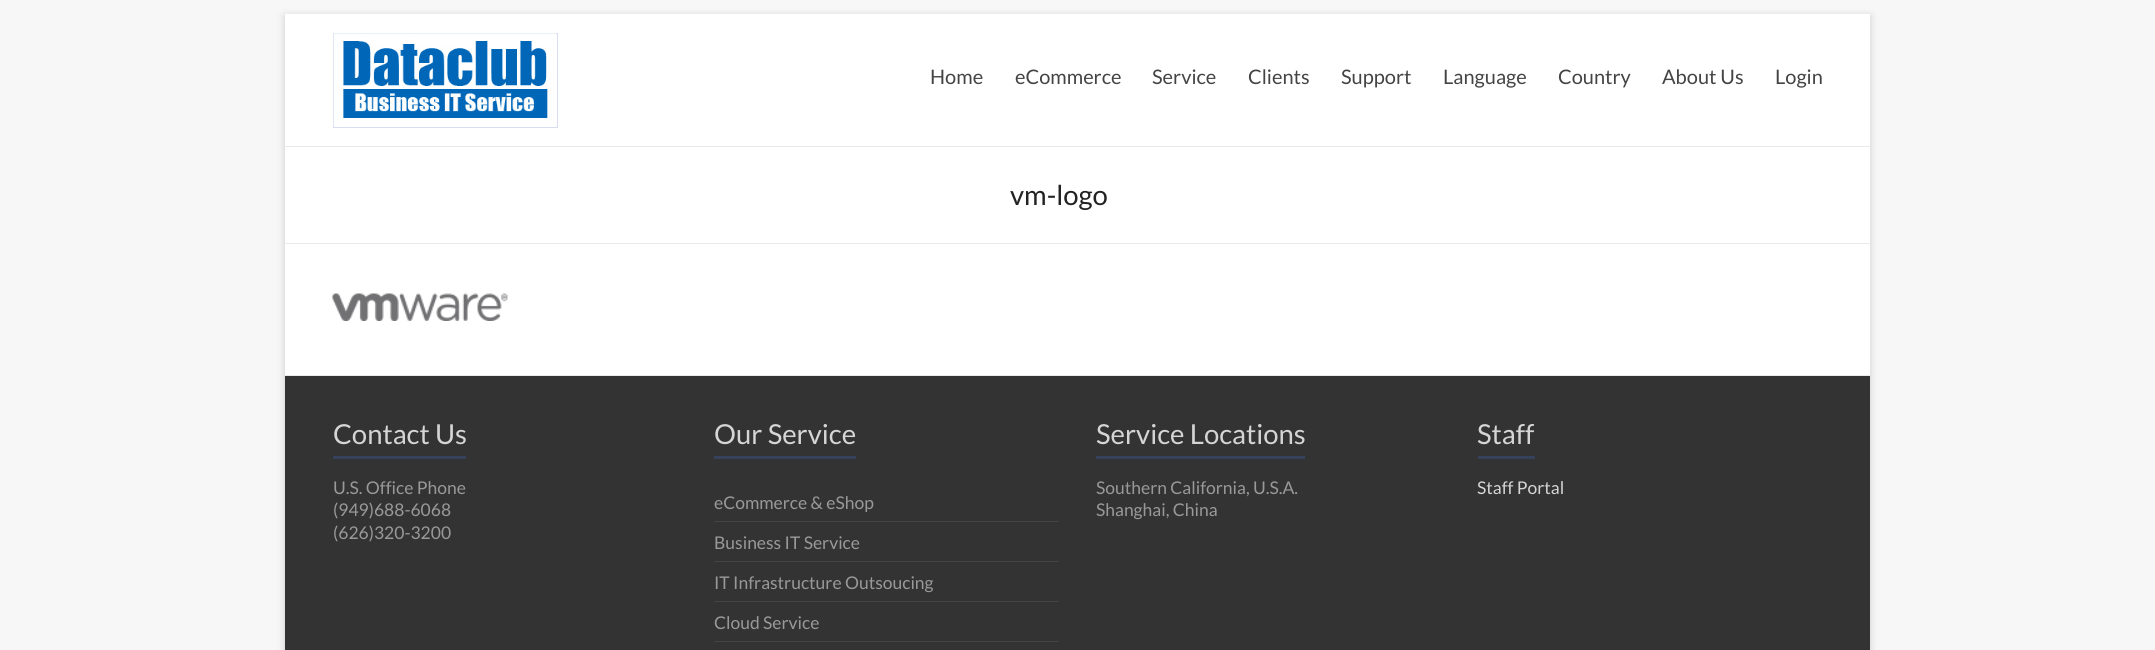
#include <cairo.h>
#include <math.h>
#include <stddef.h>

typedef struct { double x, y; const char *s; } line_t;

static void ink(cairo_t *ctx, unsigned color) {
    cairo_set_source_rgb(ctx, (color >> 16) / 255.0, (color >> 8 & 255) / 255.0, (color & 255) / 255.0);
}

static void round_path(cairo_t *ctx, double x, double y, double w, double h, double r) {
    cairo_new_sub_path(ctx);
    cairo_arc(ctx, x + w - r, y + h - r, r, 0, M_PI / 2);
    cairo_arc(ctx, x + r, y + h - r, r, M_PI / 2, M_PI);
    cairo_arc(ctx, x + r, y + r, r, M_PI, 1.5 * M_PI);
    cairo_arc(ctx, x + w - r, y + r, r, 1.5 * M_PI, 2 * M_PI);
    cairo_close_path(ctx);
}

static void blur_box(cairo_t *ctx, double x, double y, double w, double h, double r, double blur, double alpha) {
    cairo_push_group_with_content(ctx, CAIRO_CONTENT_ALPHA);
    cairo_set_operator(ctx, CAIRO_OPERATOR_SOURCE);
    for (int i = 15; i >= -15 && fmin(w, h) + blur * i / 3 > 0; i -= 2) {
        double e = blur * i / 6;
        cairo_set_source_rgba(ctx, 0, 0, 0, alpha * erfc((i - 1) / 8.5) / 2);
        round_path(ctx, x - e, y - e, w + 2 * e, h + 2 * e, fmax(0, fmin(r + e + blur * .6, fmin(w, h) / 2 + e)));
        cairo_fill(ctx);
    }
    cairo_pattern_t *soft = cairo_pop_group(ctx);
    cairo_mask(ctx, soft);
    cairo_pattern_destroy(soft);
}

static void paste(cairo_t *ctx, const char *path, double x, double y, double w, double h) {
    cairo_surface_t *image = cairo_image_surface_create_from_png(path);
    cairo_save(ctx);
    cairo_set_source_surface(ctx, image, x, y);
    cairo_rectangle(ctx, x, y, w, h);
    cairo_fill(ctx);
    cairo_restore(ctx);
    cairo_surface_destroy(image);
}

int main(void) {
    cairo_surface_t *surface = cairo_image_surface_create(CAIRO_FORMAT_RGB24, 2155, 650);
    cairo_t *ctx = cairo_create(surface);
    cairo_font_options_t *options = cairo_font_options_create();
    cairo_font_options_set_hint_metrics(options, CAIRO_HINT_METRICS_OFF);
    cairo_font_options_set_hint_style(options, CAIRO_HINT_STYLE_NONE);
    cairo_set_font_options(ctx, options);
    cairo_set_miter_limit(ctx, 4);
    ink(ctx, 0xF7F7F7);
    cairo_paint(ctx);
    ink(ctx, 0x646464);
    blur_box(ctx, 285, 16, 1585, 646, 0, 4, 0.3);
    ink(ctx, 0xFFFFFF);
    cairo_rectangle(ctx, 285, 14, 1585, 361);
    cairo_fill(ctx);
    ink(ctx, 0xEAEAEA);
    cairo_rectangle(ctx, 285, 146, 1585, 1);
    cairo_fill(ctx);
    cairo_rectangle(ctx, 333.5, 33.5, 224, 94);
    ink(ctx, 0xD6DEEF);
    cairo_set_line_width(ctx, 1);
    cairo_stroke(ctx);
    paste(ctx, "media/1.png", 333, 33, 224, 93);
    cairo_select_font_face(ctx, "Lato", CAIRO_FONT_SLANT_NORMAL, CAIRO_FONT_WEIGHT_NORMAL);
    cairo_set_font_size(ctx, 20);
    ink(ctx, 0x444444);
    {
        static const line_t items[] = {
            {930, 84, "Home"},
            {1015, 84, "eCommerce"},
            {1152, 84, "Service"},
            {1248, 84, "Clients"},
            {1341, 84, "Support"},
            {1443, 84, "Language"},
            {1558, 84, "Country"},
            {1662, 84, "About Us"},
            {1775, 84, "Login"},
        };
        for (size_t i = 0; i < sizeof items / sizeof *items; i++) {
            cairo_move_to(ctx, items[i].x, items[i].y);
            cairo_show_text(ctx, items[i].s);
        }
    }
    ink(ctx, 0xEAEAEA);
    cairo_rectangle(ctx, 285, 243, 1585, 1);
    cairo_fill(ctx);
    cairo_set_font_size(ctx, 27.5);
    ink(ctx, 0x222222);
    cairo_move_to(ctx, 1010, 205);
    cairo_show_text(ctx, "vm-logo");
    paste(ctx, "media/2.png", 332, 293, 176, 28);
    ink(ctx, 0x333333);
    cairo_rectangle(ctx, 285, 376, 1585, 274);
    cairo_fill(ctx);
    ink(ctx, 0xEAEAEA);
    cairo_rectangle(ctx, 285, 375, 1585, 1);
    cairo_fill(ctx);
    ink(ctx, 0xD5D5D5);
    cairo_move_to(ctx, 333, 444);
    cairo_show_text(ctx, "Contact Us");
    ink(ctx, 0x36425B);
    cairo_rectangle(ctx, 333, 456, 133, 3);
    cairo_fill(ctx);
    cairo_set_font_size(ctx, 17.5);
    ink(ctx, 0x999999);
    {
        static const line_t items[] = {
            {333, 494, "U.S. Office Phone"},
            {333, 516, "(949)688-6068"},
            {333, 539, "(626)320-3200"},
        };
        for (size_t i = 0; i < sizeof items / sizeof *items; i++) {
            cairo_move_to(ctx, items[i].x, items[i].y);
            cairo_show_text(ctx, items[i].s);
        }
    }
    cairo_set_font_size(ctx, 27.5);
    ink(ctx, 0xD5D5D5);
    cairo_move_to(ctx, 714, 444);
    cairo_show_text(ctx, "Our Service");
    ink(ctx, 0x36425B);
    cairo_rectangle(ctx, 714, 456, 142, 3);
    cairo_fill(ctx);
    ink(ctx, 0x444444);
    cairo_rectangle(ctx, 714, 521, 345, 1);
    cairo_fill(ctx);
    cairo_set_font_size(ctx, 17.5);
    ink(ctx, 0x999999);
    cairo_move_to(ctx, 714, 509);
    cairo_show_text(ctx, "eCommerce & eShop");
    ink(ctx, 0x444444);
    cairo_rectangle(ctx, 714, 561, 345, 1);
    cairo_fill(ctx);
    ink(ctx, 0x999999);
    cairo_move_to(ctx, 714, 549);
    cairo_show_text(ctx, "Business IT Service");
    ink(ctx, 0x444444);
    cairo_rectangle(ctx, 714, 601, 345, 1);
    cairo_fill(ctx);
    ink(ctx, 0x999999);
    cairo_move_to(ctx, 714, 589);
    cairo_show_text(ctx, "IT Infrastructure Outsoucing");
    ink(ctx, 0x444444);
    cairo_rectangle(ctx, 714, 641, 345, 1);
    cairo_fill(ctx);
    ink(ctx, 0x999999);
    cairo_move_to(ctx, 714, 629);
    cairo_show_text(ctx, "Cloud Service");
    cairo_set_font_size(ctx, 27.5);
    ink(ctx, 0xD5D5D5);
    cairo_move_to(ctx, 1096, 444);
    cairo_show_text(ctx, "Service Locations");
    ink(ctx, 0x36425B);
    cairo_rectangle(ctx, 1096, 456, 209, 3);
    cairo_fill(ctx);
    cairo_set_font_size(ctx, 17.5);
    ink(ctx, 0x999999);
    cairo_move_to(ctx, 1096, 494);
    cairo_show_text(ctx, "Southern California, U.S.A.");
    cairo_move_to(ctx, 1096, 516);
    cairo_show_text(ctx, "Shanghai, China");
    cairo_set_font_size(ctx, 27.5);
    ink(ctx, 0xD5D5D5);
    cairo_move_to(ctx, 1477, 444);
    cairo_show_text(ctx, "Staff");
    ink(ctx, 0x36425B);
    cairo_rectangle(ctx, 1478, 456, 57, 3);
    cairo_fill(ctx);
    cairo_set_font_size(ctx, 17.5);
    ink(ctx, 0xD5D5D5);
    cairo_move_to(ctx, 1477, 494);
    cairo_show_text(ctx, "Staff Portal");
    cairo_surface_write_to_png(surface, "image.png");
    cairo_font_options_destroy(options);
    cairo_destroy(ctx);
    cairo_surface_destroy(surface);
    return 0;
}
